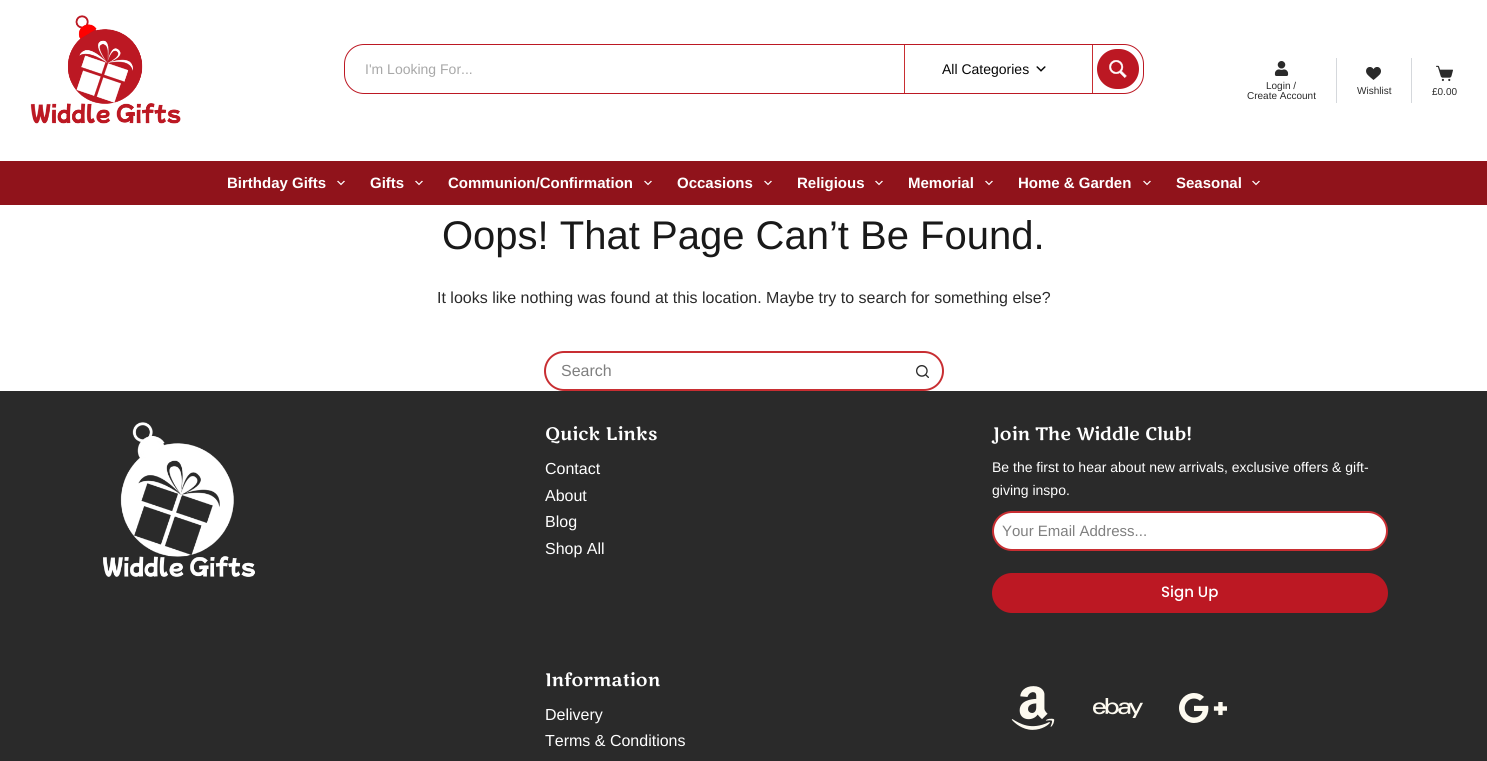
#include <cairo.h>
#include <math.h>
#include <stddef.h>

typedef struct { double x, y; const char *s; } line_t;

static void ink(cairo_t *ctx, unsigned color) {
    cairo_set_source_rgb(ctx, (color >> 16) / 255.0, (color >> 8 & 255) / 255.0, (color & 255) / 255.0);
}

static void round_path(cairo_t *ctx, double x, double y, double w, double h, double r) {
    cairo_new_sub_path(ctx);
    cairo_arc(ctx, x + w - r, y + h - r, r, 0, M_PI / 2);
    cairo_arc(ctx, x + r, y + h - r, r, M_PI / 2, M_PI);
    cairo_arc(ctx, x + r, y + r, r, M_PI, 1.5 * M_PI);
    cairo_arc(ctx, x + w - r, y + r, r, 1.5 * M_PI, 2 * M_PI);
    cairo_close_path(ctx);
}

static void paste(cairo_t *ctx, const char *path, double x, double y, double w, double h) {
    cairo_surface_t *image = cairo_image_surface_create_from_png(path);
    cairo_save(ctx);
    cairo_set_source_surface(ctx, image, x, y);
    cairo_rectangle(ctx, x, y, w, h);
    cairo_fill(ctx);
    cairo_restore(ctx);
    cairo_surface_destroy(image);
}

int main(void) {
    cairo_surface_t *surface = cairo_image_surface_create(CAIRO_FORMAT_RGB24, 1487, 761);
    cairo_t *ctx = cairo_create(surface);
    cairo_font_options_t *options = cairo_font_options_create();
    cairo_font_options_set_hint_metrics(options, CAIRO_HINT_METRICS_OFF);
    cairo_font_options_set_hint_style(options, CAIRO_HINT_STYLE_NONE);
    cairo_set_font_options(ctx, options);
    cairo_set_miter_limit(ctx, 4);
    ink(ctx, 0xFFFFFF);
    cairo_paint(ctx);
    paste(ctx, "media/1.png", 30, 15, 151, 109);
    round_path(ctx, 344.5, 44.5, 799, 49, 19.5);
    ink(ctx, 0xBC1823);
    cairo_set_line_width(ctx, 1);
    cairo_stroke(ctx);
    cairo_select_font_face(ctx, "Liberation Sans", CAIRO_FONT_SLANT_NORMAL, CAIRO_FONT_WEIGHT_NORMAL);
    cairo_set_font_size(ctx, 14);
    ink(ctx, 0xA8A8A8);
    cairo_move_to(ctx, 365, 74);
    cairo_show_text(ctx, "I'm Looking For...");
    ink(ctx, 0xC82E32);
    cairo_rectangle(ctx, 904, 45, 1, 48);
    cairo_fill(ctx);
    ink(ctx, 0x070707);
    cairo_move_to(ctx, 942, 74);
    cairo_show_text(ctx, "All Categories");
    paste(ctx, "media/2.png", 1036, 66, 10, 6);
    ink(ctx, 0xC82E32);
    cairo_rectangle(ctx, 1092, 45, 1, 48);
    cairo_fill(ctx);
    ink(ctx, 0xBC1823);
    round_path(ctx, 1097, 49, 42, 40, 20);
    cairo_fill(ctx);
    paste(ctx, "media/3.png", 1109, 60, 18, 18);
    paste(ctx, "media/4.png", 1274, 61, 15, 15);
    cairo_set_font_size(ctx, 10);
    ink(ctx, 0x2A2A2A);
    cairo_move_to(ctx, 1266, 89);
    cairo_show_text(ctx, "Login /");
    cairo_move_to(ctx, 1247, 99);
    cairo_show_text(ctx, "Create Account");
    ink(ctx, 0xD5D8DC);
    cairo_rectangle(ctx, 1336, 58, 1, 45);
    cairo_fill(ctx);
    paste(ctx, "media/5.png", 1366, 67, 15, 13);
    ink(ctx, 0x2A2A2A);
    cairo_move_to(ctx, 1357, 94);
    cairo_show_text(ctx, "Wishlist");
    ink(ctx, 0xD5D8DC);
    cairo_rectangle(ctx, 1411, 58, 1, 45);
    cairo_fill(ctx);
    paste(ctx, "media/6.png", 1436, 65, 17, 17);
    ink(ctx, 0x2A2A2A);
    cairo_move_to(ctx, 1432, 95);
    cairo_show_text(ctx, "£0.00");
    ink(ctx, 0x90131B);
    cairo_rectangle(ctx, 0, 161, 1487, 44);
    cairo_fill(ctx);
    cairo_select_font_face(ctx, "Liberation Sans", CAIRO_FONT_SLANT_NORMAL, CAIRO_FONT_WEIGHT_BOLD);
    cairo_set_font_size(ctx, 15);
    ink(ctx, 0xFFFFFF);
    cairo_move_to(ctx, 227, 188);
    cairo_show_text(ctx, "Birthday Gifts");
    paste(ctx, "media/7.png", 337, 180, 8, 6);
    cairo_move_to(ctx, 370, 188);
    cairo_show_text(ctx, "Gifts");
    paste(ctx, "media/7.png", 415, 180, 8, 6);
    cairo_move_to(ctx, 448, 188);
    cairo_show_text(ctx, "Communion/Confirmation");
    paste(ctx, "media/7.png", 644, 180, 8, 6);
    cairo_move_to(ctx, 677, 188);
    cairo_show_text(ctx, "Occasions");
    paste(ctx, "media/7.png", 764, 180, 8, 6);
    cairo_move_to(ctx, 797, 188);
    cairo_show_text(ctx, "Religious");
    paste(ctx, "media/7.png", 875, 180, 8, 6);
    cairo_move_to(ctx, 908, 188);
    cairo_show_text(ctx, "Memorial");
    paste(ctx, "media/7.png", 985, 180, 8, 6);
    cairo_move_to(ctx, 1018, 188);
    cairo_show_text(ctx, "Home & Garden");
    paste(ctx, "media/7.png", 1143, 180, 8, 6);
    cairo_move_to(ctx, 1176, 188);
    cairo_show_text(ctx, "Seasonal");
    paste(ctx, "media/7.png", 1252, 180, 8, 6);
    cairo_select_font_face(ctx, "Liberation Sans", CAIRO_FONT_SLANT_NORMAL, CAIRO_FONT_WEIGHT_NORMAL);
    cairo_set_font_size(ctx, 40);
    ink(ctx, 0x191919);
    cairo_move_to(ctx, 442, 249);
    cairo_show_text(ctx, "Oops! That Page Can’t Be Found.");
    cairo_set_font_size(ctx, 16);
    ink(ctx, 0x2A2A2A);
    cairo_move_to(ctx, 437, 303);
    cairo_show_text(ctx, "It looks like nothing was found at this location. Maybe try to search for something else?");
    ink(ctx, 0xC82E32);
    cairo_set_fill_rule(ctx, CAIRO_FILL_RULE_EVEN_ODD);
    cairo_new_path(ctx);
    cairo_move_to(ctx, 564, 351);
    cairo_line_to(ctx, 904, 351);
    cairo_line_to(ctx, 904, 391);
    cairo_line_to(ctx, 564, 391);
    cairo_curve_to(ctx, 553, 391, 544, 382, 544, 371);
    cairo_curve_to(ctx, 544, 360, 553, 351, 564, 351);
    cairo_close_path(ctx);
    cairo_move_to(ctx, 564, 353);
    cairo_line_to(ctx, 904, 353);
    cairo_line_to(ctx, 904, 389);
    cairo_line_to(ctx, 564, 389);
    cairo_curve_to(ctx, 554, 389, 546, 381, 546, 371);
    cairo_curve_to(ctx, 546, 361, 554, 353, 564, 353);
    cairo_close_path(ctx);
    cairo_fill(ctx);
    ink(ctx, 0x7F7F7F);
    cairo_move_to(ctx, 561, 376);
    cairo_show_text(ctx, "Search");
    ink(ctx, 0xC82E32);
    cairo_new_path(ctx);
    cairo_move_to(ctx, 904, 351);
    cairo_line_to(ctx, 924, 351);
    cairo_curve_to(ctx, 935, 351, 944, 360, 944, 371);
    cairo_curve_to(ctx, 944, 382, 935, 391, 924, 391);
    cairo_line_to(ctx, 904, 391);
    cairo_close_path(ctx);
    cairo_move_to(ctx, 904, 353);
    cairo_line_to(ctx, 924, 353);
    cairo_curve_to(ctx, 934, 353, 942, 361, 942, 371);
    cairo_curve_to(ctx, 942, 381, 934, 389, 924, 389);
    cairo_line_to(ctx, 904, 389);
    cairo_close_path(ctx);
    cairo_fill(ctx);
    paste(ctx, "media/8.png", 916, 365, 13, 13);
    ink(ctx, 0x2A2A2A);
    cairo_rectangle(ctx, 0, 391, 1487, 370);
    cairo_fill(ctx);
    paste(ctx, "media/9.png", 103, 422, 152, 155);
    cairo_select_font_face(ctx, "Marko One", CAIRO_FONT_SLANT_NORMAL, CAIRO_FONT_WEIGHT_NORMAL);
    cairo_set_font_size(ctx, 18);
    ink(ctx, 0xFFFFFF);
    cairo_move_to(ctx, 545, 440);
    cairo_show_text(ctx, "Quick Links");
    cairo_select_font_face(ctx, "Liberation Sans", CAIRO_FONT_SLANT_NORMAL, CAIRO_FONT_WEIGHT_NORMAL);
    cairo_set_font_size(ctx, 16);
    {
        static const line_t items[] = {
            {545, 474, "Contact"},
            {545, 501, "About"},
            {545, 527, "Blog"},
            {545, 554, "Shop All"},
        };
        for (size_t i = 0; i < sizeof items / sizeof *items; i++) {
            cairo_move_to(ctx, items[i].x, items[i].y);
            cairo_show_text(ctx, items[i].s);
        }
    }
    cairo_select_font_face(ctx, "Marko One", CAIRO_FONT_SLANT_NORMAL, CAIRO_FONT_WEIGHT_NORMAL);
    cairo_set_font_size(ctx, 18);
    cairo_move_to(ctx, 992, 440);
    cairo_show_text(ctx, "Join The Widdle Club!");
    cairo_select_font_face(ctx, "Liberation Sans", CAIRO_FONT_SLANT_NORMAL, CAIRO_FONT_WEIGHT_NORMAL);
    cairo_set_font_size(ctx, 14);
    cairo_move_to(ctx, 992, 472);
    cairo_show_text(ctx, "Be the first to hear about new arrivals, exclusive offers & gift-");
    cairo_move_to(ctx, 992, 495);
    cairo_show_text(ctx, "giving inspo.");
    round_path(ctx, 993, 512, 394, 38, 19);
    cairo_fill_preserve(ctx);
    ink(ctx, 0xC82E32);
    cairo_set_line_width(ctx, 2);
    cairo_stroke(ctx);
    cairo_set_font_size(ctx, 15);
    ink(ctx, 0x7F7F7F);
    cairo_move_to(ctx, 1002, 536);
    cairo_show_text(ctx, "Your Email Address...");
    ink(ctx, 0xBC1823);
    round_path(ctx, 992, 573, 396, 40, 20);
    cairo_fill(ctx);
    cairo_select_font_face(ctx, "Poppins Medium", CAIRO_FONT_SLANT_NORMAL, CAIRO_FONT_WEIGHT_NORMAL);
    ink(ctx, 0xFFFFFF);
    cairo_move_to(ctx, 1161, 597);
    cairo_show_text(ctx, "Sign Up");
    cairo_select_font_face(ctx, "Marko One", CAIRO_FONT_SLANT_NORMAL, CAIRO_FONT_WEIGHT_NORMAL);
    cairo_set_font_size(ctx, 18);
    cairo_move_to(ctx, 545, 686);
    cairo_show_text(ctx, "Information");
    cairo_select_font_face(ctx, "Liberation Sans", CAIRO_FONT_SLANT_NORMAL, CAIRO_FONT_WEIGHT_NORMAL);
    cairo_set_font_size(ctx, 16);
    cairo_move_to(ctx, 545, 720);
    cairo_show_text(ctx, "Delivery");
    cairo_move_to(ctx, 545, 746);
    cairo_show_text(ctx, "Terms & Conditions");
    paste(ctx, "media/10.png", 1011, 686, 44, 44);
    paste(ctx, "media/11.png", 1093, 698, 50, 20);
    paste(ctx, "media/12.png", 1179, 693, 48, 30);
    cairo_surface_write_to_png(surface, "image.png");
    cairo_font_options_destroy(options);
    cairo_destroy(ctx);
    cairo_surface_destroy(surface);
    return 0;
}
